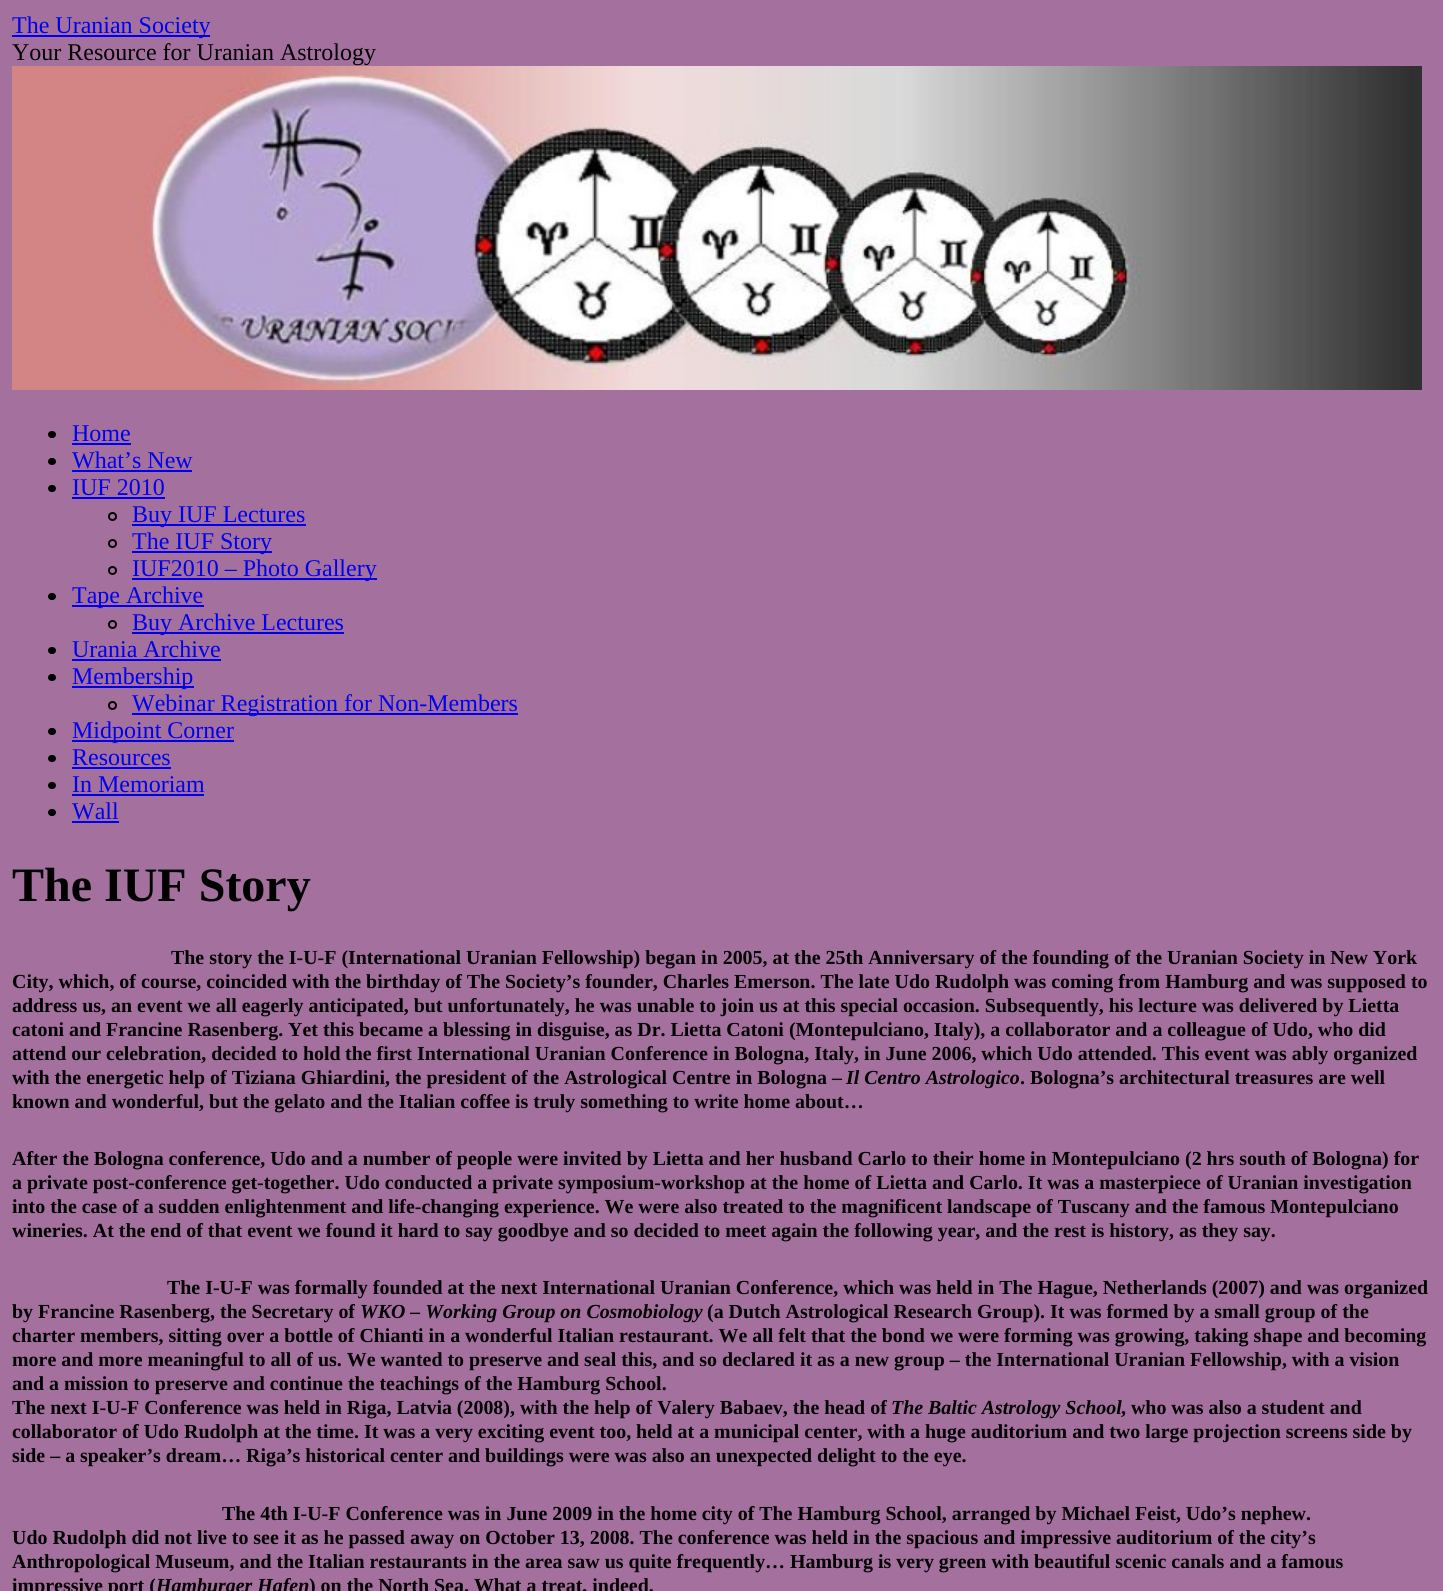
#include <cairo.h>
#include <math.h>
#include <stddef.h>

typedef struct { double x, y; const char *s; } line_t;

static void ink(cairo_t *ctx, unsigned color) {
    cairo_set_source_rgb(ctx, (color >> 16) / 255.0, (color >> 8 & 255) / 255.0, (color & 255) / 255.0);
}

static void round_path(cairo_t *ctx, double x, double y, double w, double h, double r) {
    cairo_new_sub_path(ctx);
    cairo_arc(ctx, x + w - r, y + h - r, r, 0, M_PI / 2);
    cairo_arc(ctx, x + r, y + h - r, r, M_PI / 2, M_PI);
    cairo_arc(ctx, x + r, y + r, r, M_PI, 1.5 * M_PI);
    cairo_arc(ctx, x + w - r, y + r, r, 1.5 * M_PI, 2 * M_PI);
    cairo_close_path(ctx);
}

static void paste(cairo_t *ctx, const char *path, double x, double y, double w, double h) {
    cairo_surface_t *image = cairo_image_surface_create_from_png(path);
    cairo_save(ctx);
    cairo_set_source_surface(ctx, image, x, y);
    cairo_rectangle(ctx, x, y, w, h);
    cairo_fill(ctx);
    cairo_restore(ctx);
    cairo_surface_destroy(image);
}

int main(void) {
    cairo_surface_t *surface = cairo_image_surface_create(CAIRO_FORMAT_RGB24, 1443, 1591);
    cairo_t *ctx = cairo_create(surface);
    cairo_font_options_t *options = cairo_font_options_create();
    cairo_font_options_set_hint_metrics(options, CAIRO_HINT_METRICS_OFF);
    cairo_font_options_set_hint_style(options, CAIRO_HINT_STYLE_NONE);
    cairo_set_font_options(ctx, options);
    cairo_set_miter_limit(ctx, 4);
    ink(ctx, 0xA4709E);
    cairo_paint(ctx);
    ink(ctx, 0x0000EE);
    cairo_rectangle(ctx, 12, 35, 198, 2);
    cairo_fill(ctx);
    cairo_select_font_face(ctx, "Liberation Serif", CAIRO_FONT_SLANT_NORMAL, CAIRO_FONT_WEIGHT_NORMAL);
    cairo_set_font_size(ctx, 24);
    cairo_move_to(ctx, 12, 33);
    cairo_show_text(ctx, "The Uranian Society");
    ink(ctx, 0x000000);
    cairo_move_to(ctx, 12, 60);
    cairo_show_text(ctx, "Your Resource for Uranian Astrology");
    paste(ctx, "media/1.png", 12, 66, 1410, 324);
    round_path(ctx, 48, 431, 8, 7, 3.5);
    cairo_fill(ctx);
    ink(ctx, 0x0000EE);
    cairo_move_to(ctx, 72, 441);
    cairo_show_text(ctx, "Home");
    cairo_rectangle(ctx, 72, 443, 59, 2);
    cairo_fill(ctx);
    ink(ctx, 0x000000);
    round_path(ctx, 48, 458, 8, 7, 3.5);
    cairo_fill(ctx);
    ink(ctx, 0x0000EE);
    cairo_move_to(ctx, 72, 468);
    cairo_show_text(ctx, "What’s New");
    cairo_rectangle(ctx, 72, 470, 120, 2);
    cairo_fill(ctx);
    ink(ctx, 0x000000);
    round_path(ctx, 48, 485, 8, 7, 3.5);
    cairo_fill(ctx);
    ink(ctx, 0x0000EE);
    cairo_move_to(ctx, 72, 495);
    cairo_show_text(ctx, "IUF 2010");
    cairo_rectangle(ctx, 72, 497, 93, 2);
    cairo_fill(ctx);
    cairo_arc(ctx, 112.5, 516.5, 3.5, 0, 2 * M_PI);
    ink(ctx, 0x000000);
    cairo_stroke(ctx);
    ink(ctx, 0x0000EE);
    cairo_rectangle(ctx, 132, 524, 174, 2);
    cairo_fill(ctx);
    cairo_move_to(ctx, 132, 522);
    cairo_show_text(ctx, "Buy IUF Lectures");
    cairo_new_path(ctx);
    cairo_arc(ctx, 112.5, 543.5, 3.5, 0, 2 * M_PI);
    ink(ctx, 0x000000);
    cairo_stroke(ctx);
    ink(ctx, 0x0000EE);
    cairo_rectangle(ctx, 132, 551, 140, 2);
    cairo_fill(ctx);
    cairo_move_to(ctx, 132, 549);
    cairo_show_text(ctx, "The IUF Story");
    cairo_new_path(ctx);
    cairo_arc(ctx, 112.5, 570.5, 3.5, 0, 2 * M_PI);
    ink(ctx, 0x000000);
    cairo_stroke(ctx);
    ink(ctx, 0x0000EE);
    cairo_rectangle(ctx, 132, 578, 245, 2);
    cairo_fill(ctx);
    cairo_move_to(ctx, 132, 576);
    cairo_show_text(ctx, "IUF2010 – Photo Gallery");
    ink(ctx, 0x000000);
    round_path(ctx, 48, 593, 8, 7, 3.5);
    cairo_fill(ctx);
    ink(ctx, 0x0000EE);
    cairo_rectangle(ctx, 72, 605, 132, 2);
    cairo_fill(ctx);
    cairo_move_to(ctx, 72, 603);
    cairo_show_text(ctx, "Tape Archive");
    cairo_new_path(ctx);
    cairo_arc(ctx, 112.5, 624.5, 3.5, 0, 2 * M_PI);
    ink(ctx, 0x000000);
    cairo_stroke(ctx);
    ink(ctx, 0x0000EE);
    cairo_rectangle(ctx, 132, 632, 212, 2);
    cairo_fill(ctx);
    cairo_move_to(ctx, 132, 630);
    cairo_show_text(ctx, "Buy Archive Lectures");
    ink(ctx, 0x000000);
    round_path(ctx, 48, 647, 8, 7, 3.5);
    cairo_fill(ctx);
    ink(ctx, 0x0000EE);
    cairo_move_to(ctx, 72, 657);
    cairo_show_text(ctx, "Urania Archive");
    cairo_rectangle(ctx, 72, 659, 149, 2);
    cairo_fill(ctx);
    ink(ctx, 0x000000);
    round_path(ctx, 48, 674, 8, 7, 3.5);
    cairo_fill(ctx);
    ink(ctx, 0x0000EE);
    cairo_rectangle(ctx, 72, 686, 122, 2);
    cairo_fill(ctx);
    cairo_move_to(ctx, 72, 684);
    cairo_show_text(ctx, "Membership");
    cairo_new_path(ctx);
    cairo_arc(ctx, 112.5, 705.5, 3.5, 0, 2 * M_PI);
    ink(ctx, 0x000000);
    cairo_stroke(ctx);
    ink(ctx, 0x0000EE);
    cairo_rectangle(ctx, 132, 713, 386, 2);
    cairo_fill(ctx);
    cairo_move_to(ctx, 132, 711);
    cairo_show_text(ctx, "Webinar Registration for Non-Members");
    ink(ctx, 0x000000);
    round_path(ctx, 48, 728, 8, 7, 3.5);
    cairo_fill(ctx);
    ink(ctx, 0x0000EE);
    cairo_rectangle(ctx, 72, 740, 162, 2);
    cairo_fill(ctx);
    cairo_move_to(ctx, 72, 738);
    cairo_show_text(ctx, "Midpoint Corner");
    ink(ctx, 0x000000);
    round_path(ctx, 48, 755, 8, 7, 3.5);
    cairo_fill(ctx);
    ink(ctx, 0x0000EE);
    cairo_move_to(ctx, 72, 765);
    cairo_show_text(ctx, "Resources");
    cairo_rectangle(ctx, 72, 767, 99, 2);
    cairo_fill(ctx);
    ink(ctx, 0x000000);
    round_path(ctx, 48, 782, 8, 7, 3.5);
    cairo_fill(ctx);
    ink(ctx, 0x0000EE);
    cairo_move_to(ctx, 72, 792);
    cairo_show_text(ctx, "In Memoriam");
    cairo_rectangle(ctx, 72, 794, 132, 2);
    cairo_fill(ctx);
    ink(ctx, 0x000000);
    round_path(ctx, 48, 809, 8, 7, 3.5);
    cairo_fill(ctx);
    ink(ctx, 0x0000EE);
    cairo_move_to(ctx, 72, 819);
    cairo_show_text(ctx, "Wall");
    cairo_rectangle(ctx, 72, 821, 47, 2);
    cairo_fill(ctx);
    cairo_select_font_face(ctx, "Liberation Serif", CAIRO_FONT_SLANT_NORMAL, CAIRO_FONT_WEIGHT_BOLD);
    cairo_set_font_size(ctx, 48);
    ink(ctx, 0x000000);
    cairo_move_to(ctx, 12, 901);
    cairo_show_text(ctx, "The IUF Story");
    cairo_set_font_size(ctx, 19.92);
    {
        static const line_t items[] = {
            {171, 964, "The story the I-U-F (International Uranian Fellowship) began in 2005, at the 25th Anniversary of the founding of the Uranian Society in New York"},
            {12, 988, "City, which, of course, coincided with the birthday of The Society’s founder, Charles Emerson. The late Udo Rudolph was coming from Hamburg and was supposed to"},
            {12, 1012, "address us, an event we all eagerly anticipated, but unfortunately, he was unable to join us at this special occasion. Subsequently, his lecture was delivered by Lietta"},
            {12, 1036, "catoni and Francine Rasenberg. Yet this became a blessing in disguise, as Dr. Lietta Catoni (Montepulciano, Italy), a collaborator and a colleague of Udo, who did"},
            {12, 1060, "attend our celebration, decided to hold"},
            {345, 1060, "the first International Uranian Conference in Bologna, Italy, in June 2006, which Udo attended. This event was ably organized"},
            {12, 1084, "with the energetic help of Tiziana Ghiardini, the president of the Astrological Centre in Bologna –"},
        };
        for (size_t i = 0; i < sizeof items / sizeof *items; i++) {
            cairo_move_to(ctx, items[i].x, items[i].y);
            cairo_show_text(ctx, items[i].s);
        }
    }
    cairo_select_font_face(ctx, "Liberation Serif", CAIRO_FONT_SLANT_ITALIC, CAIRO_FONT_WEIGHT_BOLD);
    cairo_move_to(ctx, 846, 1084);
    cairo_show_text(ctx, "Il Centro Astrologico");
    cairo_select_font_face(ctx, "Liberation Serif", CAIRO_FONT_SLANT_NORMAL, CAIRO_FONT_WEIGHT_BOLD);
    {
        static const line_t items[] = {
            {1020, 1084, ". Bologna’s architectural treasures are well"},
            {12, 1108, "known and wonderful, but the gelato and the Italian coffee is truly something to write home about…"},
            {12, 1165, "After the Bologna conference, Udo and a number of people were invited by Lietta and her husband Carlo to their home in Montepulciano (2 hrs south of Bologna) for"},
            {12, 1189, "a private post-conference get-together. Udo conducted a private symposium-workshop at the home of Lietta and Carlo. It was a masterpiece of Uranian investigation"},
            {12, 1213, "into the case of a sudden enlightenment and life-changing experience. We were also treated to the magnificent landscape of Tuscany and the famous Montepulciano"},
            {12, 1237, "wineries. At the end of that event we found it hard to say goodbye and so decided to meet again the following year, and the rest is history, as they say."},
            {167, 1294, "The I-U-F was formally founded at the next International Uranian Conference, which was held in The Hague, Netherlands (2007) and was organized"},
            {12, 1318, "by Francine Rasenberg, the Secretary of"},
        };
        for (size_t i = 0; i < sizeof items / sizeof *items; i++) {
            cairo_move_to(ctx, items[i].x, items[i].y);
            cairo_show_text(ctx, items[i].s);
        }
    }
    cairo_select_font_face(ctx, "Liberation Serif", CAIRO_FONT_SLANT_ITALIC, CAIRO_FONT_WEIGHT_BOLD);
    cairo_move_to(ctx, 360, 1318);
    cairo_show_text(ctx, "WKO – Working Group on Cosmobiology");
    cairo_select_font_face(ctx, "Liberation Serif", CAIRO_FONT_SLANT_NORMAL, CAIRO_FONT_WEIGHT_BOLD);
    {
        static const line_t items[] = {
            {707, 1318, "(a Dutch Astrological Research Group). It was formed by a small group of the"},
            {12, 1342, "charter members, sitting over a bottle of Chianti in a wonderful Italian restaurant. We all felt that the bond we were forming was growing, taking shape and becoming"},
            {12, 1366, "more and more meaningful to all of us. We wanted to preserve and seal this, and so declared it as a new group – the International Uranian Fellowship, with a vision"},
            {12, 1390, "and a mission to preserve and continue the teachings of the Hamburg School."},
            {12, 1414, "The next I-U-F Conference was held in Riga, Latvia (2008), with the help of Valery Babaev, the head of"},
        };
        for (size_t i = 0; i < sizeof items / sizeof *items; i++) {
            cairo_move_to(ctx, items[i].x, items[i].y);
            cairo_show_text(ctx, items[i].s);
        }
    }
    cairo_select_font_face(ctx, "Liberation Serif", CAIRO_FONT_SLANT_ITALIC, CAIRO_FONT_WEIGHT_BOLD);
    cairo_move_to(ctx, 891, 1414);
    cairo_show_text(ctx, "The Baltic Astrology School");
    cairo_select_font_face(ctx, "Liberation Serif", CAIRO_FONT_SLANT_NORMAL, CAIRO_FONT_WEIGHT_BOLD);
    {
        static const line_t items[] = {
            {1121, 1414, ", who was also a student and"},
            {12, 1438, "collaborator of Udo Rudolph at the time. It was a very exciting event too, held at a municipal center, with a huge auditorium and two large projection screens side by"},
            {12, 1462, "side – a speaker’s dream… Riga’s historical center and buildings were was also an unexpected delight to the eye."},
            {222, 1520, "The 4th I-U-F Conference was in June 2009 in the home city of The Hamburg School, arranged by Michael Feist, Udo’s nephew."},
            {12, 1544, "Udo Rudolph did not live to see it as he passed away on October 13, 2008. The conference was held in the spacious and impressive auditorium of the city’s"},
            {12, 1568, "Anthropological Museum, and the Italian restaurants in the area saw us quite frequently… Hamburg is very green with beautiful scenic canals and a famous"},
            {12, 1592, "impressive port ("},
        };
        for (size_t i = 0; i < sizeof items / sizeof *items; i++) {
            cairo_move_to(ctx, items[i].x, items[i].y);
            cairo_show_text(ctx, items[i].s);
        }
    }
    cairo_select_font_face(ctx, "Liberation Serif", CAIRO_FONT_SLANT_ITALIC, CAIRO_FONT_WEIGHT_BOLD);
    cairo_move_to(ctx, 156, 1592);
    cairo_show_text(ctx, "Hamburger Hafen");
    cairo_select_font_face(ctx, "Liberation Serif", CAIRO_FONT_SLANT_NORMAL, CAIRO_FONT_WEIGHT_BOLD);
    cairo_move_to(ctx, 309, 1592);
    cairo_show_text(ctx, ") on the North Sea. What a treat, indeed.");
    cairo_surface_write_to_png(surface, "image.png");
    cairo_font_options_destroy(options);
    cairo_destroy(ctx);
    cairo_surface_destroy(surface);
    return 0;
}
